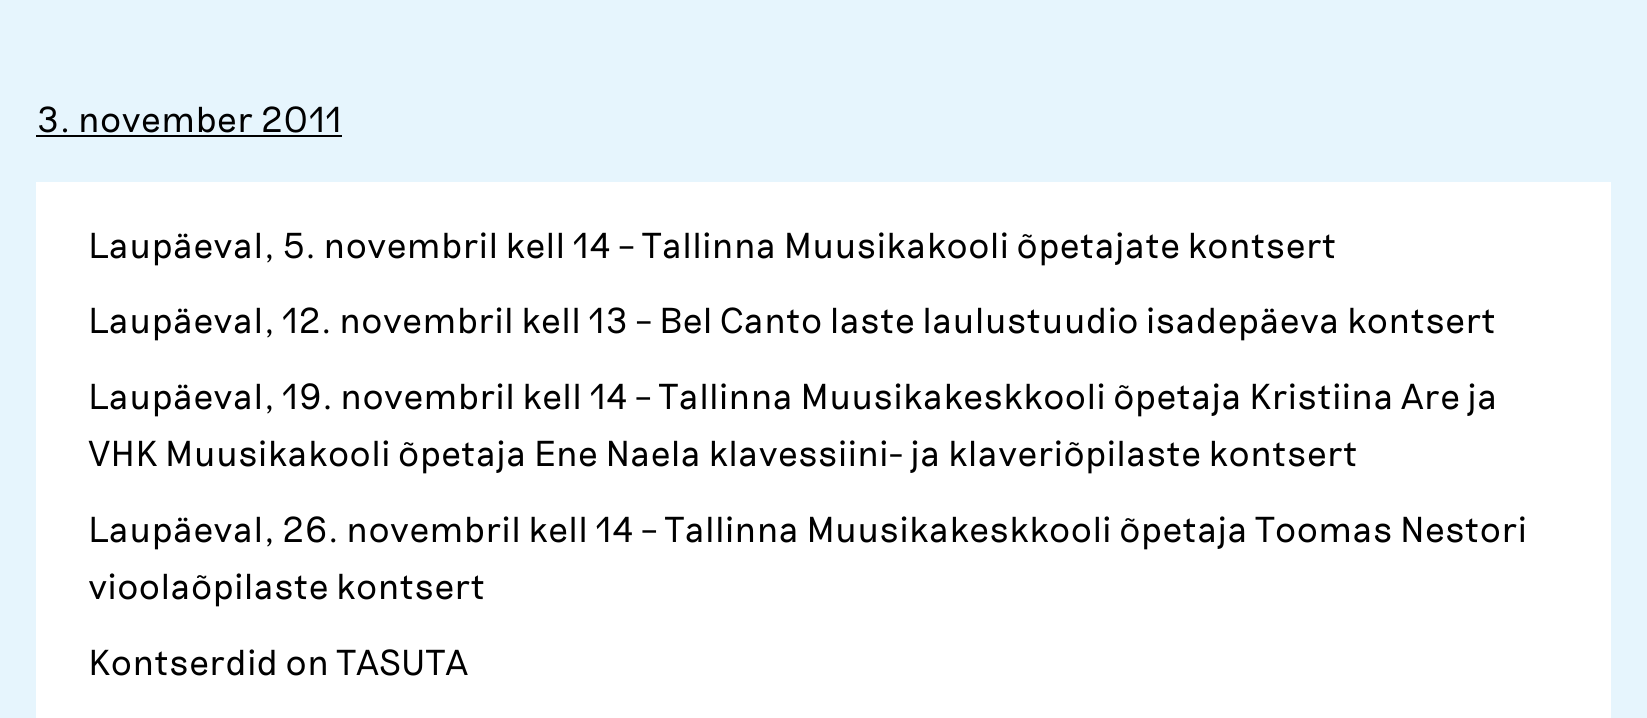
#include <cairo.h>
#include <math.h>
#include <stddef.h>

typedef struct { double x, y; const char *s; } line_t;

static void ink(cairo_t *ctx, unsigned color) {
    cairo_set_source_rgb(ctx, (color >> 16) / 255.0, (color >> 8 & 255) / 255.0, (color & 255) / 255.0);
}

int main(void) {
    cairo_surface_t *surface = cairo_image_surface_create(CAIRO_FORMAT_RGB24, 1647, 718);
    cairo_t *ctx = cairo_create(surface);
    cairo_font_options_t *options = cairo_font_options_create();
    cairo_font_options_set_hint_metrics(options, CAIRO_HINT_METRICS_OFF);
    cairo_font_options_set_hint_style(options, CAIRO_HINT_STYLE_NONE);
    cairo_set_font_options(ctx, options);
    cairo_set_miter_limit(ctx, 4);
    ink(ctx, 0xE6F5FD);
    cairo_paint(ctx);
    cairo_select_font_face(ctx, "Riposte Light", CAIRO_FONT_SLANT_NORMAL, CAIRO_FONT_WEIGHT_NORMAL);
    cairo_set_font_size(ctx, 36);
    ink(ctx, 0x000000);
    cairo_move_to(ctx, 36, 132);
    cairo_show_text(ctx, "3. november 2011");
    cairo_rectangle(ctx, 36, 135, 306, 2);
    cairo_fill(ctx);
    ink(ctx, 0xFFFFFF);
    cairo_rectangle(ctx, 36, 182, 1575, 536);
    cairo_fill(ctx);
    ink(ctx, 0x000000);
    {
        static const line_t items[] = {
            {88, 258, "Laupäeval, 5. novembril kell 14 – Tallinna Muusikakooli õpetajate kontsert"},
            {88, 333, "Laupäeval, 12. novembril kell 13 – Bel Canto laste laulustuudio isadepäeva kontsert"},
            {88, 409, "Laupäeval, 19. novembril kell 14 – Tallinna Muusikakeskkooli õpetaja Kristiina Are ja"},
            {88, 466, "VHK Muusikakooli õpetaja Ene Naela klavessiini- ja klaveriõpilaste kontsert"},
            {88, 542, "Laupäeval, 26. novembril kell 14 – Tallinna Muusikakeskkooli õpetaja Toomas Nestori"},
            {88, 599, "vioolaõpilaste kontsert"},
            {88, 675, "Kontserdid on TASUTA"},
        };
        for (size_t i = 0; i < sizeof items / sizeof *items; i++) {
            cairo_move_to(ctx, items[i].x, items[i].y);
            cairo_show_text(ctx, items[i].s);
        }
    }
    cairo_surface_write_to_png(surface, "image.png");
    cairo_font_options_destroy(options);
    cairo_destroy(ctx);
    cairo_surface_destroy(surface);
    return 0;
}
